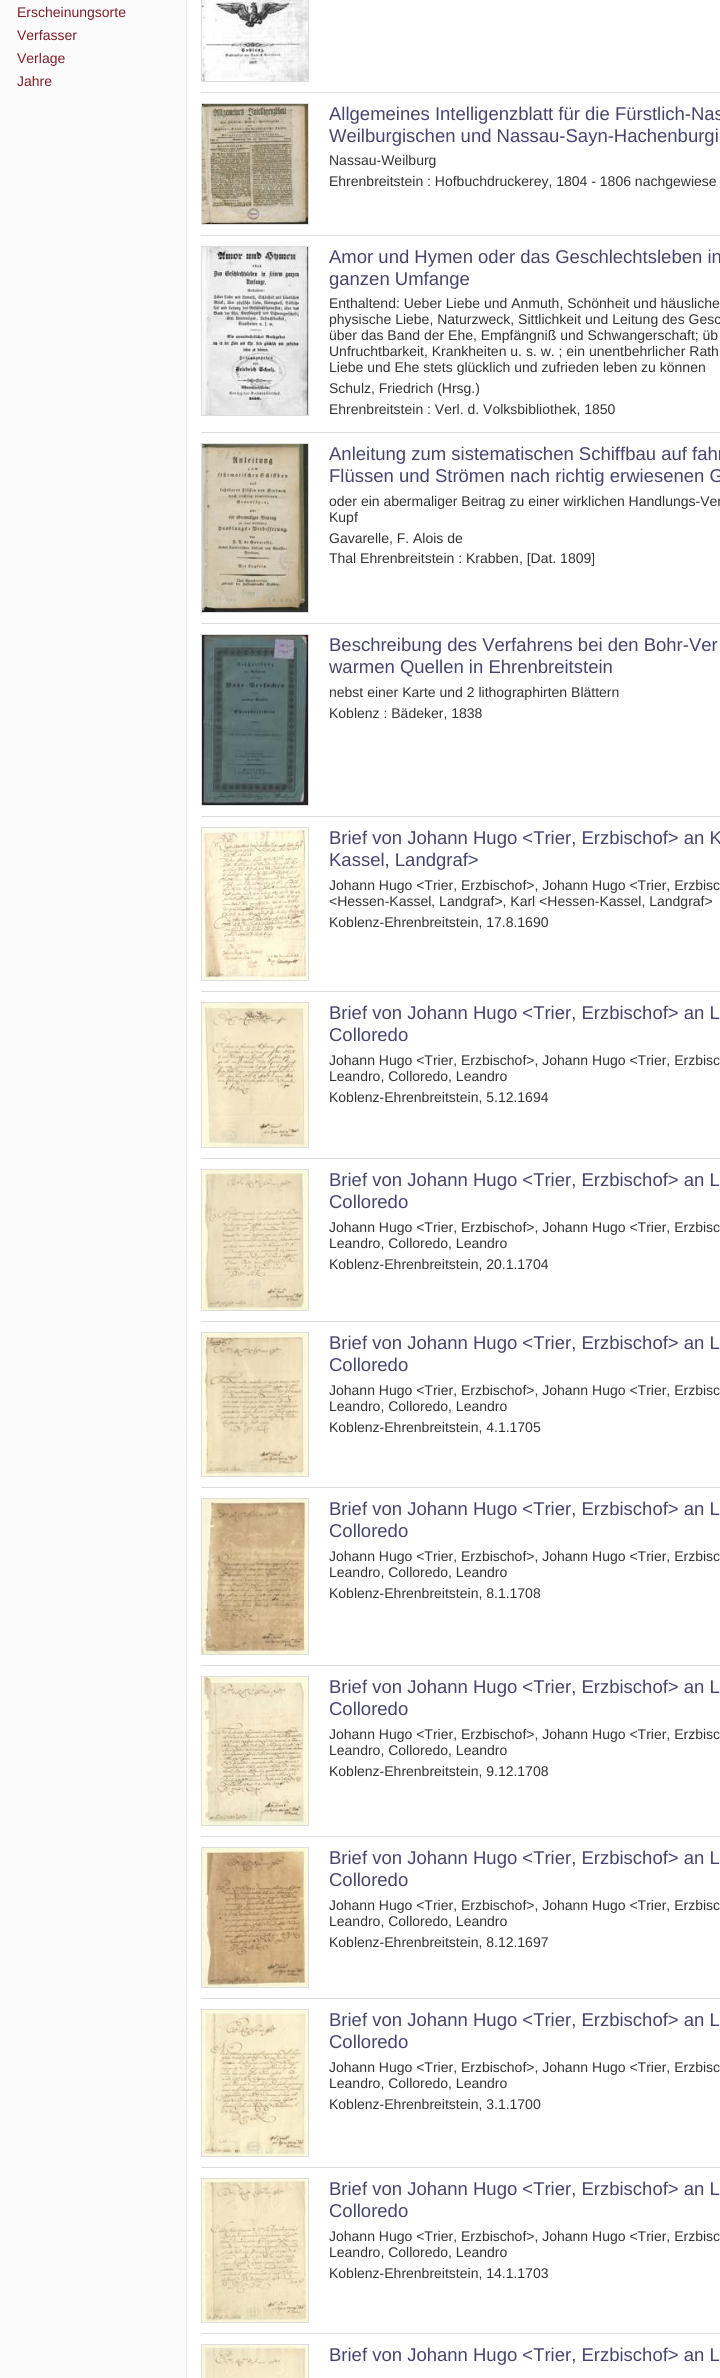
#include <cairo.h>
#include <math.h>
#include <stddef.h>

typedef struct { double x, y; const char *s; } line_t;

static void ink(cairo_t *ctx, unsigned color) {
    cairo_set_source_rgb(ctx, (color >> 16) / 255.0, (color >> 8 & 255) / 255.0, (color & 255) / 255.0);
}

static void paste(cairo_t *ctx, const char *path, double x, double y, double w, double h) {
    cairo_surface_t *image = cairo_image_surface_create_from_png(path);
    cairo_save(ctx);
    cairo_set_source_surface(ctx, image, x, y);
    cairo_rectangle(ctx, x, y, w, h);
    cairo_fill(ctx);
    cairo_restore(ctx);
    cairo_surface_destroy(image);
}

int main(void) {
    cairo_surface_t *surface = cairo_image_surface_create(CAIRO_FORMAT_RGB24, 720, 2378);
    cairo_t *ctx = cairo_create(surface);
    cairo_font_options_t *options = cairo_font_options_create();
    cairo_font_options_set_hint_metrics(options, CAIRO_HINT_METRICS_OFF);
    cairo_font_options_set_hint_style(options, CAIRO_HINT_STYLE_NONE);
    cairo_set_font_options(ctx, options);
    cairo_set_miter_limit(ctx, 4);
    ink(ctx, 0xFFFFFF);
    cairo_paint(ctx);
    ink(ctx, 0xFBFBFB);
    cairo_rectangle(ctx, 0, 0, 186, 2378);
    cairo_fill(ctx);
    ink(ctx, 0xE7E7E7);
    cairo_rectangle(ctx, 186, 0, 1, 2378);
    cairo_fill(ctx);
    cairo_select_font_face(ctx, "Liberation Sans", CAIRO_FONT_SLANT_NORMAL, CAIRO_FONT_WEIGHT_NORMAL);
    cairo_set_font_size(ctx, 14);
    ink(ctx, 0x7E1E29);
    {
        static const line_t items[] = {
            {17, 17, "Erscheinungsorte"},
            {17, 40, "Verfasser"},
            {17, 63, "Verlage"},
            {17, 86, "Jahre"},
        };
        for (size_t i = 0; i < sizeof items / sizeof *items; i++) {
            cairo_move_to(ctx, items[i].x, items[i].y);
            cairo_show_text(ctx, items[i].s);
        }
    }
    cairo_rectangle(ctx, 201.5, -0.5, 107, 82);
    ink(ctx, 0xDDDDDD);
    cairo_set_line_width(ctx, 1);
    cairo_stroke(ctx);
    paste(ctx, "media/1.png", 202, 0, 106, 81);
    cairo_rectangle(ctx, 201, 92, 519, 1);
    cairo_fill(ctx);
    cairo_rectangle(ctx, 201.5, 103.5, 107, 121);
    cairo_stroke(ctx);
    paste(ctx, "media/2.png", 202, 104, 106, 120);
    cairo_set_font_size(ctx, 18.5);
    ink(ctx, 0x47456D);
    cairo_move_to(ctx, 329, 120);
    cairo_show_text(ctx, "Allgemeines Intelligenzblatt für die Fürstlich-Nas");
    cairo_move_to(ctx, 329, 142);
    cairo_show_text(ctx, "Weilburgischen und Nassau-Sayn-Hachenburgi");
    cairo_set_font_size(ctx, 14);
    ink(ctx, 0x333333);
    cairo_move_to(ctx, 329, 165);
    cairo_show_text(ctx, "Nassau-Weilburg");
    cairo_move_to(ctx, 329, 186);
    cairo_show_text(ctx, "Ehrenbreitstein : Hofbuchdruckerey, 1804 - 1806 nachgewiese");
    ink(ctx, 0xDDDDDD);
    cairo_rectangle(ctx, 201, 235, 519, 1);
    cairo_fill(ctx);
    cairo_rectangle(ctx, 201.5, 246.5, 107, 169);
    cairo_stroke(ctx);
    paste(ctx, "media/3.png", 202, 247, 106, 168);
    cairo_set_font_size(ctx, 18.5);
    ink(ctx, 0x47456D);
    cairo_move_to(ctx, 329, 263);
    cairo_show_text(ctx, "Amor und Hymen oder das Geschlechtsleben in");
    cairo_move_to(ctx, 329, 285);
    cairo_show_text(ctx, "ganzen Umfange");
    cairo_set_font_size(ctx, 14);
    ink(ctx, 0x333333);
    {
        static const line_t items[] = {
            {329, 308, "Enthaltend: Ueber Liebe und Anmuth, Schönheit und häusliche"},
            {329, 324, "physische Liebe, Naturzweck, Sittlichkeit und Leitung des Gesc"},
            {329, 340, "über das Band der Ehe, Empfängniß und Schwangerschaft; üb"},
            {329, 356, "Unfruchtbarkeit, Krankheiten u. s. w. ; ein unentbehrlicher Rath"},
            {329, 372, "Liebe und Ehe stets glücklich und zufrieden leben zu können"},
            {329, 393, "Schulz, Friedrich (Hrsg.)"},
            {329, 414, "Ehrenbreitstein : Verl. d. Volksbibliothek, 1850"},
        };
        for (size_t i = 0; i < sizeof items / sizeof *items; i++) {
            cairo_move_to(ctx, items[i].x, items[i].y);
            cairo_show_text(ctx, items[i].s);
        }
    }
    ink(ctx, 0xDDDDDD);
    cairo_rectangle(ctx, 201, 432, 519, 1);
    cairo_fill(ctx);
    cairo_rectangle(ctx, 201.5, 443.5, 107, 169);
    cairo_stroke(ctx);
    paste(ctx, "media/4.png", 202, 444, 106, 168);
    cairo_set_font_size(ctx, 18.5);
    ink(ctx, 0x47456D);
    cairo_move_to(ctx, 329, 460);
    cairo_show_text(ctx, "Anleitung zum sistematischen Schiffbau auf fahr");
    cairo_move_to(ctx, 329, 482);
    cairo_show_text(ctx, "Flüssen und Strömen nach richtig erwiesenen G");
    cairo_set_font_size(ctx, 14);
    ink(ctx, 0x333333);
    {
        static const line_t items[] = {
            {329, 506, "oder ein abermaliger Beitrag zu einer wirklichen Handlungs-Ver"},
            {329, 522, "Kupf"},
            {329, 543, "Gavarelle, F. Alois de"},
            {329, 563, "Thal Ehrenbreitstein : Krabben, [Dat. 1809]"},
        };
        for (size_t i = 0; i < sizeof items / sizeof *items; i++) {
            cairo_move_to(ctx, items[i].x, items[i].y);
            cairo_show_text(ctx, items[i].s);
        }
    }
    ink(ctx, 0xDDDDDD);
    cairo_rectangle(ctx, 201, 623, 519, 1);
    cairo_fill(ctx);
    cairo_rectangle(ctx, 201.5, 634.5, 107, 171);
    cairo_stroke(ctx);
    paste(ctx, "media/5.png", 202, 635, 106, 170);
    cairo_set_font_size(ctx, 18.5);
    ink(ctx, 0x47456D);
    cairo_move_to(ctx, 329, 651);
    cairo_show_text(ctx, "Beschreibung des Verfahrens bei den Bohr-Ver");
    cairo_move_to(ctx, 329, 673);
    cairo_show_text(ctx, "warmen Quellen in Ehrenbreitstein");
    cairo_set_font_size(ctx, 14);
    ink(ctx, 0x333333);
    cairo_move_to(ctx, 329, 697);
    cairo_show_text(ctx, "nebst einer Karte und 2 lithographirten Blättern");
    cairo_move_to(ctx, 329, 718);
    cairo_show_text(ctx, "Koblenz : Bädeker, 1838");
    ink(ctx, 0xDDDDDD);
    cairo_rectangle(ctx, 201, 816, 519, 1);
    cairo_fill(ctx);
    cairo_rectangle(ctx, 201.5, 827.5, 107, 153);
    cairo_stroke(ctx);
    paste(ctx, "media/6.png", 202, 828, 106, 152);
    cairo_set_font_size(ctx, 18.5);
    ink(ctx, 0x47456D);
    cairo_move_to(ctx, 329, 844);
    cairo_show_text(ctx, "Brief von Johann Hugo <Trier, Erzbischof> an K");
    cairo_move_to(ctx, 329, 866);
    cairo_show_text(ctx, "Kassel, Landgraf>");
    cairo_set_font_size(ctx, 14);
    ink(ctx, 0x333333);
    {
        static const line_t items[] = {
            {329, 890, "Johann Hugo <Trier, Erzbischof>, Johann Hugo <Trier, Erzbisc"},
            {329, 906, "<Hessen-Kassel, Landgraf>, Karl <Hessen-Kassel, Landgraf>"},
            {329, 927, "Koblenz-Ehrenbreitstein, 17.8.1690"},
        };
        for (size_t i = 0; i < sizeof items / sizeof *items; i++) {
            cairo_move_to(ctx, items[i].x, items[i].y);
            cairo_show_text(ctx, items[i].s);
        }
    }
    ink(ctx, 0xDDDDDD);
    cairo_rectangle(ctx, 201, 991, 519, 1);
    cairo_fill(ctx);
    cairo_rectangle(ctx, 201.5, 1002.5, 107, 145);
    cairo_stroke(ctx);
    paste(ctx, "media/7.png", 202, 1003, 106, 144);
    cairo_set_font_size(ctx, 18.5);
    ink(ctx, 0x47456D);
    cairo_move_to(ctx, 329, 1019);
    cairo_show_text(ctx, "Brief von Johann Hugo <Trier, Erzbischof> an L");
    cairo_move_to(ctx, 329, 1041);
    cairo_show_text(ctx, "Colloredo");
    cairo_set_font_size(ctx, 14);
    ink(ctx, 0x333333);
    {
        static const line_t items[] = {
            {329, 1065, "Johann Hugo <Trier, Erzbischof>, Johann Hugo <Trier, Erzbisc"},
            {329, 1081, "Leandro, Colloredo, Leandro"},
            {329, 1102, "Koblenz-Ehrenbreitstein, 5.12.1694"},
        };
        for (size_t i = 0; i < sizeof items / sizeof *items; i++) {
            cairo_move_to(ctx, items[i].x, items[i].y);
            cairo_show_text(ctx, items[i].s);
        }
    }
    ink(ctx, 0xDDDDDD);
    cairo_rectangle(ctx, 201, 1158, 519, 1);
    cairo_fill(ctx);
    cairo_rectangle(ctx, 201.5, 1169.5, 107, 141);
    cairo_stroke(ctx);
    paste(ctx, "media/8.png", 202, 1170, 106, 140);
    cairo_set_font_size(ctx, 18.5);
    ink(ctx, 0x47456D);
    cairo_move_to(ctx, 329, 1186);
    cairo_show_text(ctx, "Brief von Johann Hugo <Trier, Erzbischof> an L");
    cairo_move_to(ctx, 329, 1208);
    cairo_show_text(ctx, "Colloredo");
    cairo_set_font_size(ctx, 14);
    ink(ctx, 0x333333);
    {
        static const line_t items[] = {
            {329, 1232, "Johann Hugo <Trier, Erzbischof>, Johann Hugo <Trier, Erzbisc"},
            {329, 1248, "Leandro, Colloredo, Leandro"},
            {329, 1269, "Koblenz-Ehrenbreitstein, 20.1.1704"},
        };
        for (size_t i = 0; i < sizeof items / sizeof *items; i++) {
            cairo_move_to(ctx, items[i].x, items[i].y);
            cairo_show_text(ctx, items[i].s);
        }
    }
    ink(ctx, 0xDDDDDD);
    cairo_rectangle(ctx, 201, 1321, 519, 1);
    cairo_fill(ctx);
    cairo_rectangle(ctx, 201.5, 1332.5, 107, 144);
    cairo_stroke(ctx);
    paste(ctx, "media/9.png", 202, 1333, 106, 143);
    cairo_set_font_size(ctx, 18.5);
    ink(ctx, 0x47456D);
    cairo_move_to(ctx, 329, 1349);
    cairo_show_text(ctx, "Brief von Johann Hugo <Trier, Erzbischof> an L");
    cairo_move_to(ctx, 329, 1371);
    cairo_show_text(ctx, "Colloredo");
    cairo_set_font_size(ctx, 14);
    ink(ctx, 0x333333);
    {
        static const line_t items[] = {
            {329, 1395, "Johann Hugo <Trier, Erzbischof>, Johann Hugo <Trier, Erzbisc"},
            {329, 1411, "Leandro, Colloredo, Leandro"},
            {329, 1432, "Koblenz-Ehrenbreitstein, 4.1.1705"},
        };
        for (size_t i = 0; i < sizeof items / sizeof *items; i++) {
            cairo_move_to(ctx, items[i].x, items[i].y);
            cairo_show_text(ctx, items[i].s);
        }
    }
    ink(ctx, 0xDDDDDD);
    cairo_rectangle(ctx, 201, 1487, 519, 1);
    cairo_fill(ctx);
    cairo_rectangle(ctx, 201.5, 1498.5, 107, 156);
    cairo_stroke(ctx);
    paste(ctx, "media/10.png", 202, 1499, 106, 155);
    cairo_set_font_size(ctx, 18.5);
    ink(ctx, 0x47456D);
    cairo_move_to(ctx, 329, 1515);
    cairo_show_text(ctx, "Brief von Johann Hugo <Trier, Erzbischof> an L");
    cairo_move_to(ctx, 329, 1537);
    cairo_show_text(ctx, "Colloredo");
    cairo_set_font_size(ctx, 14);
    ink(ctx, 0x333333);
    {
        static const line_t items[] = {
            {329, 1561, "Johann Hugo <Trier, Erzbischof>, Johann Hugo <Trier, Erzbisc"},
            {329, 1577, "Leandro, Colloredo, Leandro"},
            {329, 1598, "Koblenz-Ehrenbreitstein, 8.1.1708"},
        };
        for (size_t i = 0; i < sizeof items / sizeof *items; i++) {
            cairo_move_to(ctx, items[i].x, items[i].y);
            cairo_show_text(ctx, items[i].s);
        }
    }
    ink(ctx, 0xDDDDDD);
    cairo_rectangle(ctx, 201, 1665, 519, 1);
    cairo_fill(ctx);
    cairo_rectangle(ctx, 201.5, 1676.5, 107, 149);
    cairo_stroke(ctx);
    paste(ctx, "media/11.png", 202, 1677, 106, 148);
    cairo_set_font_size(ctx, 18.5);
    ink(ctx, 0x47456D);
    cairo_move_to(ctx, 329, 1693);
    cairo_show_text(ctx, "Brief von Johann Hugo <Trier, Erzbischof> an L");
    cairo_move_to(ctx, 329, 1715);
    cairo_show_text(ctx, "Colloredo");
    cairo_set_font_size(ctx, 14);
    ink(ctx, 0x333333);
    {
        static const line_t items[] = {
            {329, 1739, "Johann Hugo <Trier, Erzbischof>, Johann Hugo <Trier, Erzbisc"},
            {329, 1755, "Leandro, Colloredo, Leandro"},
            {329, 1776, "Koblenz-Ehrenbreitstein, 9.12.1708"},
        };
        for (size_t i = 0; i < sizeof items / sizeof *items; i++) {
            cairo_move_to(ctx, items[i].x, items[i].y);
            cairo_show_text(ctx, items[i].s);
        }
    }
    ink(ctx, 0xDDDDDD);
    cairo_rectangle(ctx, 201, 1836, 519, 1);
    cairo_fill(ctx);
    cairo_rectangle(ctx, 201.5, 1847.5, 107, 140);
    cairo_stroke(ctx);
    paste(ctx, "media/12.png", 202, 1848, 106, 139);
    cairo_set_font_size(ctx, 18.5);
    ink(ctx, 0x47456D);
    cairo_move_to(ctx, 329, 1864);
    cairo_show_text(ctx, "Brief von Johann Hugo <Trier, Erzbischof> an L");
    cairo_move_to(ctx, 329, 1886);
    cairo_show_text(ctx, "Colloredo");
    cairo_set_font_size(ctx, 14);
    ink(ctx, 0x333333);
    {
        static const line_t items[] = {
            {329, 1910, "Johann Hugo <Trier, Erzbischof>, Johann Hugo <Trier, Erzbisc"},
            {329, 1926, "Leandro, Colloredo, Leandro"},
            {329, 1947, "Koblenz-Ehrenbreitstein, 8.12.1697"},
        };
        for (size_t i = 0; i < sizeof items / sizeof *items; i++) {
            cairo_move_to(ctx, items[i].x, items[i].y);
            cairo_show_text(ctx, items[i].s);
        }
    }
    ink(ctx, 0xDDDDDD);
    cairo_rectangle(ctx, 201, 1998, 519, 1);
    cairo_fill(ctx);
    cairo_rectangle(ctx, 201.5, 2009.5, 107, 147);
    cairo_stroke(ctx);
    paste(ctx, "media/13.png", 202, 2010, 106, 146);
    cairo_set_font_size(ctx, 18.5);
    ink(ctx, 0x47456D);
    cairo_move_to(ctx, 329, 2026);
    cairo_show_text(ctx, "Brief von Johann Hugo <Trier, Erzbischof> an L");
    cairo_move_to(ctx, 329, 2048);
    cairo_show_text(ctx, "Colloredo");
    cairo_set_font_size(ctx, 14);
    ink(ctx, 0x333333);
    {
        static const line_t items[] = {
            {329, 2072, "Johann Hugo <Trier, Erzbischof>, Johann Hugo <Trier, Erzbisc"},
            {329, 2088, "Leandro, Colloredo, Leandro"},
            {329, 2109, "Koblenz-Ehrenbreitstein, 3.1.1700"},
        };
        for (size_t i = 0; i < sizeof items / sizeof *items; i++) {
            cairo_move_to(ctx, items[i].x, items[i].y);
            cairo_show_text(ctx, items[i].s);
        }
    }
    ink(ctx, 0xDDDDDD);
    cairo_rectangle(ctx, 201, 2167, 519, 1);
    cairo_fill(ctx);
    cairo_rectangle(ctx, 201.5, 2178.5, 107, 144);
    cairo_stroke(ctx);
    paste(ctx, "media/14.png", 202, 2179, 106, 143);
    cairo_set_font_size(ctx, 18.5);
    ink(ctx, 0x47456D);
    cairo_move_to(ctx, 329, 2195);
    cairo_show_text(ctx, "Brief von Johann Hugo <Trier, Erzbischof> an L");
    cairo_move_to(ctx, 329, 2217);
    cairo_show_text(ctx, "Colloredo");
    cairo_set_font_size(ctx, 14);
    ink(ctx, 0x333333);
    {
        static const line_t items[] = {
            {329, 2241, "Johann Hugo <Trier, Erzbischof>, Johann Hugo <Trier, Erzbisc"},
            {329, 2257, "Leandro, Colloredo, Leandro"},
            {329, 2278, "Koblenz-Ehrenbreitstein, 14.1.1703"},
        };
        for (size_t i = 0; i < sizeof items / sizeof *items; i++) {
            cairo_move_to(ctx, items[i].x, items[i].y);
            cairo_show_text(ctx, items[i].s);
        }
    }
    ink(ctx, 0xDDDDDD);
    cairo_rectangle(ctx, 201, 2333, 519, 1);
    cairo_fill(ctx);
    cairo_rectangle(ctx, 201.5, 2344.5, 107, 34);
    cairo_stroke(ctx);
    paste(ctx, "media/15.png", 202, 2345, 106, 33);
    cairo_set_font_size(ctx, 18.5);
    ink(ctx, 0x47456D);
    cairo_move_to(ctx, 329, 2361);
    cairo_show_text(ctx, "Brief von Johann Hugo <Trier, Erzbischof> an L");
    cairo_surface_write_to_png(surface, "image.png");
    cairo_font_options_destroy(options);
    cairo_destroy(ctx);
    cairo_surface_destroy(surface);
    return 0;
}
